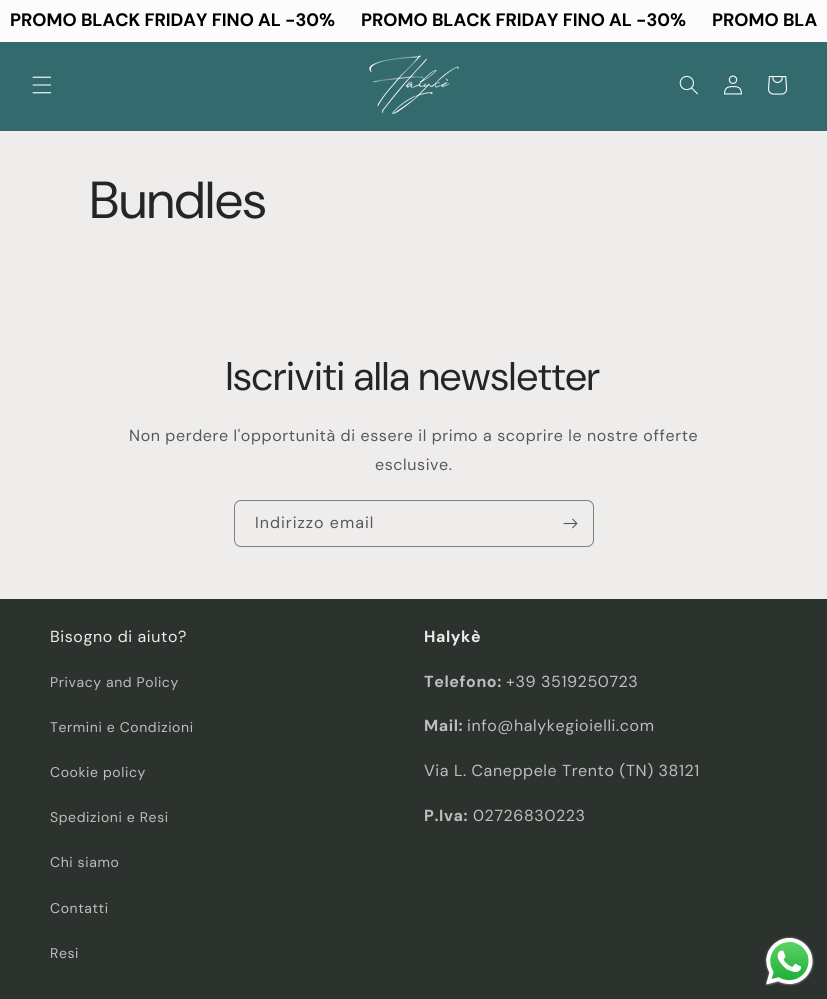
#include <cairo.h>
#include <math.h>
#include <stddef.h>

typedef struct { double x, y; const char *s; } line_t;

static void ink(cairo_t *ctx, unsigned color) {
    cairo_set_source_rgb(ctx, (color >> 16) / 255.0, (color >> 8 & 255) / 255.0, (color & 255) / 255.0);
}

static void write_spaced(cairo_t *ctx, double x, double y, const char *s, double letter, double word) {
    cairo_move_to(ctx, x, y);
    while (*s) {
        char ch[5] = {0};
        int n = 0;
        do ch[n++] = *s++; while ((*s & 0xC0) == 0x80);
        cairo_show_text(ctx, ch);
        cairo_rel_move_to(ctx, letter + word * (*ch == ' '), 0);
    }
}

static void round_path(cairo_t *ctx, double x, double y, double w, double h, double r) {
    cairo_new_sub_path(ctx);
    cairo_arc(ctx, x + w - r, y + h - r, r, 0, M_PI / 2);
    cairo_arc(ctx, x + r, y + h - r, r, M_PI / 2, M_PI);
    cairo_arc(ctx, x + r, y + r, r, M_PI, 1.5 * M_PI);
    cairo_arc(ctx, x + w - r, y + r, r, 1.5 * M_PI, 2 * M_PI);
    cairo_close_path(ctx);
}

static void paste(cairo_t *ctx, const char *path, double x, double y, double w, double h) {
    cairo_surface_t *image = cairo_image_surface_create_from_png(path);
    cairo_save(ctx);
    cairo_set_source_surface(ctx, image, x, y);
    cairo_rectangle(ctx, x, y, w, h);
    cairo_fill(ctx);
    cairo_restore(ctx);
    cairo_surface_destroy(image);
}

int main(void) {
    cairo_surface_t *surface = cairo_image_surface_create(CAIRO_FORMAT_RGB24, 827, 999);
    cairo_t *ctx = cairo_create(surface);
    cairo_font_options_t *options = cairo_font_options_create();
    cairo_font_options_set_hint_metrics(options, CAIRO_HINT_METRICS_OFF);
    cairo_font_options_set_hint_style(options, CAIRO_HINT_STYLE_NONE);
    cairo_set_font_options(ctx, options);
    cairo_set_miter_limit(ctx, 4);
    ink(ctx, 0xEFECEC);
    cairo_paint(ctx);
    ink(ctx, 0xFCFCFC);
    cairo_rectangle(ctx, 0, 0, 827, 42);
    cairo_fill(ctx);
    cairo_select_font_face(ctx, "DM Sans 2", CAIRO_FONT_SLANT_NORMAL, CAIRO_FONT_WEIGHT_BOLD);
    cairo_set_font_size(ctx, 18);
    ink(ctx, 0x000000);
    {
        static const line_t items[] = {
            {10, 26, "PROMO BLACK FRIDAY FINO AL -30%"},
            {361, 26, "PROMO BLACK FRIDAY FINO AL -30%"},
            {712, 26, "PROMO BLA"},
        };
        for (size_t i = 0; i < sizeof items / sizeof *items; i++) {
            cairo_move_to(ctx, items[i].x, items[i].y);
            cairo_show_text(ctx, items[i].s);
        }
    }
    ink(ctx, 0x336A6D);
    cairo_rectangle(ctx, 0, 42, 827, 89);
    cairo_fill(ctx);
    paste(ctx, "media/1.png", 32, 76, 20, 18);
    paste(ctx, "media/2.png", 369, 55, 90, 60);
    paste(ctx, "media/3.png", 679, 75, 19, 20);
    paste(ctx, "media/4.png", 724, 75, 18, 20);
    paste(ctx, "media/5.png", 768, 76, 20, 19);
    cairo_select_font_face(ctx, "DM Sans", CAIRO_FONT_SLANT_NORMAL, CAIRO_FONT_WEIGHT_NORMAL);
    cairo_set_font_size(ctx, 52);
    ink(ctx, 0x252525);
    write_spaced(ctx, 90, 218, "Bundles", 0.6, 0);
    cairo_set_font_size(ctx, 40);
    write_spaced(ctx, 226, 390, "Iscriviti alla newsletter", 0.6, 0);
    cairo_select_font_face(ctx, "DM Sans 2", CAIRO_FONT_SLANT_NORMAL, CAIRO_FONT_WEIGHT_NORMAL);
    cairo_set_font_size(ctx, 16);
    ink(ctx, 0x585757);
    write_spaced(ctx, 129, 441, "Non perdere l'opportunità di essere il primo a scoprire le nostre offerte", 0.6, 0);
    write_spaced(ctx, 375, 470, "esclusive.", 0.6, 0);
    round_path(ctx, 234.5, 500.5, 359, 46, 6.5);
    ink(ctx, 0x807F7F);
    cairo_set_line_width(ctx, 1);
    cairo_stroke(ctx);
    ink(ctx, 0x585757);
    write_spaced(ctx, 255, 528, "Indirizzo email", 1, 0);
    paste(ctx, "media/6.png", 563, 518, 15, 11);
    ink(ctx, 0x2C332F);
    cairo_rectangle(ctx, 0, 599, 827, 400);
    cairo_fill(ctx);
    ink(ctx, 0xEFECEC);
    write_spaced(ctx, 50, 642, "Bisogno di aiuto?", 0.6, 0);
    cairo_select_font_face(ctx, "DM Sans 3", CAIRO_FONT_SLANT_NORMAL, CAIRO_FONT_WEIGHT_NORMAL);
    cairo_set_font_size(ctx, 14);
    ink(ctx, 0xBEBEBD);
    {
        static const line_t items[] = {
            {50, 687, "Privacy and Policy"},
            {50, 732, "Termini e Condizioni"},
            {50, 777, "Cookie policy"},
            {50, 822, "Spedizioni e Resi"},
            {50, 867, "Chi siamo"},
            {50, 913, "Contatti"},
            {50, 958, "Resi"},
        };
        for (size_t i = 0; i < sizeof items / sizeof *items; i++) {
            write_spaced(ctx, items[i].x, items[i].y, items[i].s, 0.6, 0);
        }
    }
    cairo_select_font_face(ctx, "DM Sans", CAIRO_FONT_SLANT_NORMAL, CAIRO_FONT_WEIGHT_BOLD);
    cairo_set_font_size(ctx, 16);
    ink(ctx, 0xEFECEC);
    write_spaced(ctx, 424, 642, "Halykè", 0.6, 0);
    ink(ctx, 0xBEBEBD);
    write_spaced(ctx, 424, 687, "Telefono:", 0.6, 0);
    cairo_select_font_face(ctx, "DM Sans 2", CAIRO_FONT_SLANT_NORMAL, CAIRO_FONT_WEIGHT_NORMAL);
    write_spaced(ctx, 506, 687, "+39 3519250723", 0.6, 0);
    cairo_select_font_face(ctx, "DM Sans", CAIRO_FONT_SLANT_NORMAL, CAIRO_FONT_WEIGHT_BOLD);
    write_spaced(ctx, 424, 731, "Mail:", 0.6, 0);
    cairo_select_font_face(ctx, "DM Sans 2", CAIRO_FONT_SLANT_NORMAL, CAIRO_FONT_WEIGHT_NORMAL);
    write_spaced(ctx, 467, 731, "info@halykegioielli.com", 0.6, 0);
    write_spaced(ctx, 424, 776, "Via L. Caneppele Trento (TN) 38121", 0.6, 0);
    cairo_select_font_face(ctx, "DM Sans", CAIRO_FONT_SLANT_NORMAL, CAIRO_FONT_WEIGHT_BOLD);
    write_spaced(ctx, 424, 821, "P.Iva:", 0.6, 0);
    cairo_select_font_face(ctx, "DM Sans 2", CAIRO_FONT_SLANT_NORMAL, CAIRO_FONT_WEIGHT_NORMAL);
    write_spaced(ctx, 473, 821, "02726830223", 0.6, 0);
    paste(ctx, "media/7.png", 764, 936, 51, 50);
    cairo_surface_write_to_png(surface, "image.png");
    cairo_font_options_destroy(options);
    cairo_destroy(ctx);
    cairo_surface_destroy(surface);
    return 0;
}
